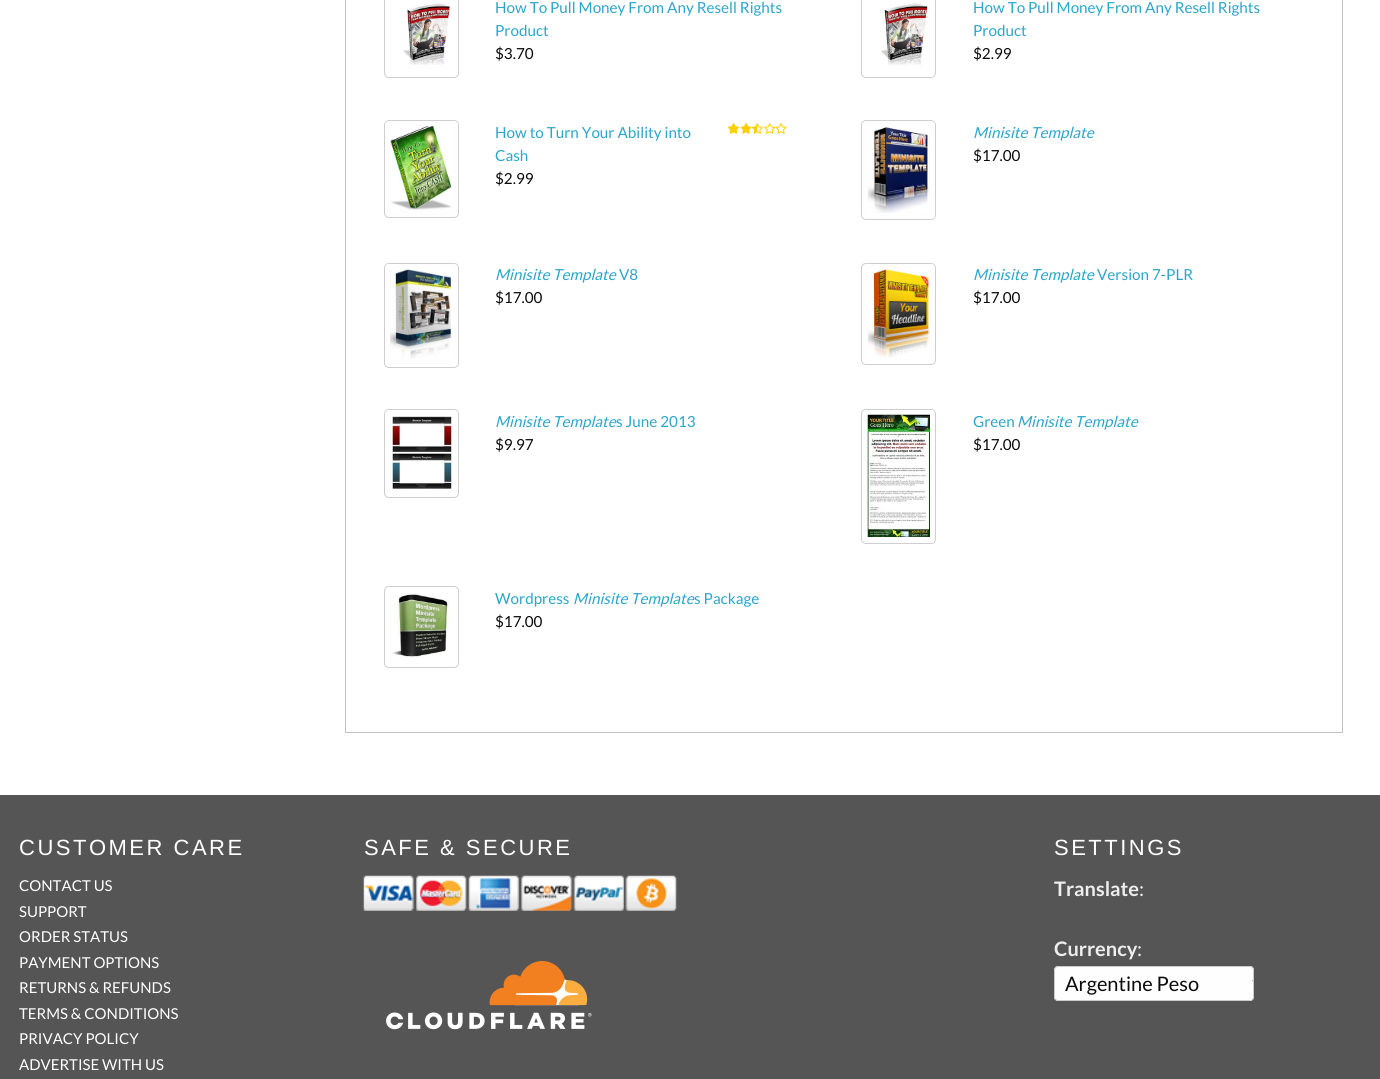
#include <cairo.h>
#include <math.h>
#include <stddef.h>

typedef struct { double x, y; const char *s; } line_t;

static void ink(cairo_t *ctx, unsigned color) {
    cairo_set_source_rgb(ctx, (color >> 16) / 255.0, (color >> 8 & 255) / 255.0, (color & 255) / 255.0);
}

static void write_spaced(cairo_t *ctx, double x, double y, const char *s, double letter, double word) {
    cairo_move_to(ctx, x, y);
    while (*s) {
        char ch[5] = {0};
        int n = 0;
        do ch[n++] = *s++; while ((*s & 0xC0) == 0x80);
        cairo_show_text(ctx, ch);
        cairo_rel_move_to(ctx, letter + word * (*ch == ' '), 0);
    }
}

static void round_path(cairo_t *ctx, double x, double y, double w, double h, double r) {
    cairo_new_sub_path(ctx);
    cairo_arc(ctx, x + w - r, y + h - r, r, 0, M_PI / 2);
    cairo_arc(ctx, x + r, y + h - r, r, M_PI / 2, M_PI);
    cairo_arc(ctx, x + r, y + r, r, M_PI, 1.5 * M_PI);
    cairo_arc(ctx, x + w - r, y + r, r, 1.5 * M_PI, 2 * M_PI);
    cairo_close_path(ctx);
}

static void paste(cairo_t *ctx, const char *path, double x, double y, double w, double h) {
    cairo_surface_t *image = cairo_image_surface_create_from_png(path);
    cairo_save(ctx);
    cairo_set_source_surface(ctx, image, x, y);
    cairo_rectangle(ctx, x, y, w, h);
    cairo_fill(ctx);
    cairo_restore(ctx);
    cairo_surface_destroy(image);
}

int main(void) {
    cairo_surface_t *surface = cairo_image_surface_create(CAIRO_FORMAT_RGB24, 1380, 1079);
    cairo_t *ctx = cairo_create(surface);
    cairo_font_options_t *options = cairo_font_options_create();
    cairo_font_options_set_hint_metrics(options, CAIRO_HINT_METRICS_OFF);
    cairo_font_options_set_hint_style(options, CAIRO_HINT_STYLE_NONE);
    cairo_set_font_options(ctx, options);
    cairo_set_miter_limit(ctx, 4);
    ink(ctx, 0xFFFFFF);
    cairo_paint(ctx);
    cairo_rectangle(ctx, 345.5, -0.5, 997, 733);
    ink(ctx, 0xC2C2C2);
    cairo_set_line_width(ctx, 1);
    cairo_stroke(ctx);
    round_path(ctx, 384.5, -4.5, 74, 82, 4.5);
    ink(ctx, 0xCECECE);
    cairo_stroke(ctx);
    paste(ctx, "media/1.png", 403, 3, 48, 62);
    cairo_select_font_face(ctx, "Lato", CAIRO_FONT_SLANT_NORMAL, CAIRO_FONT_WEIGHT_NORMAL);
    cairo_set_font_size(ctx, 15.25);
    ink(ctx, 0x2BA6CB);
    cairo_move_to(ctx, 495, 13);
    cairo_show_text(ctx, "How To Pull Money From Any Resell Rights");
    cairo_move_to(ctx, 495, 36);
    cairo_show_text(ctx, "Product");
    ink(ctx, 0x0A0A0A);
    cairo_move_to(ctx, 495, 59);
    cairo_show_text(ctx, "$3.70");
    round_path(ctx, 861.5, -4.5, 74, 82, 4.5);
    ink(ctx, 0xCECECE);
    cairo_stroke(ctx);
    paste(ctx, "media/2.png", 881, 2, 47, 64);
    ink(ctx, 0x2BA6CB);
    cairo_move_to(ctx, 973, 13);
    cairo_show_text(ctx, "How To Pull Money From Any Resell Rights");
    cairo_move_to(ctx, 973, 36);
    cairo_show_text(ctx, "Product");
    ink(ctx, 0x0A0A0A);
    cairo_move_to(ctx, 973, 59);
    cairo_show_text(ctx, "$2.99");
    round_path(ctx, 384.5, 120.5, 74, 97, 4.5);
    ink(ctx, 0xCECECE);
    cairo_stroke(ctx);
    round_path(ctx, 387.5, 123.5, 68, 90, 1.5);
    ink(ctx, 0xFEFEFE);
    cairo_set_line_width(ctx, 5);
    cairo_stroke(ctx);
    paste(ctx, "media/3.png", 390, 125, 62, 85);
    ink(ctx, 0x2BA6CB);
    cairo_move_to(ctx, 495, 138);
    cairo_show_text(ctx, "How to Turn Your Ability into");
    paste(ctx, "media/4.png", 728, 123, 11, 11);
    paste(ctx, "media/5.png", 740, 123, 12, 11);
    paste(ctx, "media/6.png", 751, 123, 12, 11);
    paste(ctx, "media/7.png", 764, 123, 12, 11);
    paste(ctx, "media/8.png", 775, 123, 12, 11);
    cairo_move_to(ctx, 495, 161);
    cairo_show_text(ctx, "Cash");
    ink(ctx, 0x0A0A0A);
    cairo_move_to(ctx, 495, 184);
    cairo_show_text(ctx, "$2.99");
    round_path(ctx, 861.5, 120.5, 74, 99, 4.5);
    ink(ctx, 0xCECECE);
    cairo_set_line_width(ctx, 1);
    cairo_stroke(ctx);
    round_path(ctx, 865.5, 123.5, 67, 93, 1.5);
    ink(ctx, 0xFEFEFE);
    cairo_set_line_width(ctx, 5);
    cairo_stroke(ctx);
    paste(ctx, "media/9.png", 867, 126, 63, 87);
    cairo_select_font_face(ctx, "Lato", CAIRO_FONT_SLANT_ITALIC, CAIRO_FONT_WEIGHT_NORMAL);
    ink(ctx, 0x2BA6CB);
    cairo_move_to(ctx, 973, 138);
    cairo_show_text(ctx, "Minisite Template");
    cairo_select_font_face(ctx, "Lato", CAIRO_FONT_SLANT_NORMAL, CAIRO_FONT_WEIGHT_NORMAL);
    ink(ctx, 0x0A0A0A);
    cairo_move_to(ctx, 973, 161);
    cairo_show_text(ctx, "$17.00");
    round_path(ctx, 384.5, 263.5, 74, 104, 4.5);
    ink(ctx, 0xCECECE);
    cairo_set_line_width(ctx, 1);
    cairo_stroke(ctx);
    round_path(ctx, 387.5, 266.5, 68, 97, 1.5);
    ink(ctx, 0xFEFEFE);
    cairo_set_line_width(ctx, 5);
    cairo_stroke(ctx);
    paste(ctx, "media/10.png", 390, 268, 63, 91);
    cairo_select_font_face(ctx, "Lato", CAIRO_FONT_SLANT_ITALIC, CAIRO_FONT_WEIGHT_NORMAL);
    ink(ctx, 0x2BA6CB);
    cairo_move_to(ctx, 495, 280);
    cairo_show_text(ctx, "Minisite Template");
    cairo_select_font_face(ctx, "Lato", CAIRO_FONT_SLANT_NORMAL, CAIRO_FONT_WEIGHT_NORMAL);
    cairo_move_to(ctx, 619, 280);
    cairo_show_text(ctx, "V8");
    ink(ctx, 0x0A0A0A);
    cairo_move_to(ctx, 495, 303);
    cairo_show_text(ctx, "$17.00");
    round_path(ctx, 861.5, 263.5, 74, 101, 4.5);
    ink(ctx, 0xCECECE);
    cairo_set_line_width(ctx, 1);
    cairo_stroke(ctx);
    round_path(ctx, 865.5, 266.5, 67, 95, 1.5);
    ink(ctx, 0xFEFEFE);
    cairo_set_line_width(ctx, 5);
    cairo_stroke(ctx);
    paste(ctx, "media/11.png", 867, 268, 63, 90);
    cairo_select_font_face(ctx, "Lato", CAIRO_FONT_SLANT_ITALIC, CAIRO_FONT_WEIGHT_NORMAL);
    ink(ctx, 0x2BA6CB);
    cairo_move_to(ctx, 973, 280);
    cairo_show_text(ctx, "Minisite Template");
    cairo_select_font_face(ctx, "Lato", CAIRO_FONT_SLANT_NORMAL, CAIRO_FONT_WEIGHT_NORMAL);
    cairo_move_to(ctx, 1097, 280);
    cairo_show_text(ctx, "Version 7-PLR");
    ink(ctx, 0x0A0A0A);
    cairo_move_to(ctx, 973, 303);
    cairo_show_text(ctx, "$17.00");
    round_path(ctx, 384.5, 409.5, 74, 88, 4.5);
    ink(ctx, 0xCECECE);
    cairo_set_line_width(ctx, 1);
    cairo_stroke(ctx);
    round_path(ctx, 387.5, 412.5, 68, 81, 1.5);
    ink(ctx, 0xFEFEFE);
    cairo_set_line_width(ctx, 5);
    cairo_stroke(ctx);
    paste(ctx, "media/12.png", 390, 416, 62, 73);
    cairo_select_font_face(ctx, "Lato", CAIRO_FONT_SLANT_ITALIC, CAIRO_FONT_WEIGHT_NORMAL);
    ink(ctx, 0x2BA6CB);
    cairo_move_to(ctx, 495, 427);
    cairo_show_text(ctx, "Minisite Template");
    cairo_select_font_face(ctx, "Lato", CAIRO_FONT_SLANT_NORMAL, CAIRO_FONT_WEIGHT_NORMAL);
    cairo_move_to(ctx, 616, 427);
    cairo_show_text(ctx, "s June 2013");
    ink(ctx, 0x0A0A0A);
    cairo_move_to(ctx, 495, 450);
    cairo_show_text(ctx, "$9.97");
    round_path(ctx, 861.5, 409.5, 74, 134, 4.5);
    ink(ctx, 0xCECECE);
    cairo_set_line_width(ctx, 1);
    cairo_stroke(ctx);
    round_path(ctx, 865.5, 412.5, 67, 128, 1.5);
    ink(ctx, 0xFEFEFE);
    cairo_set_line_width(ctx, 5);
    cairo_stroke(ctx);
    paste(ctx, "media/13.png", 867, 414, 63, 123);
    ink(ctx, 0x2BA6CB);
    cairo_move_to(ctx, 973, 427);
    cairo_show_text(ctx, "Green");
    cairo_select_font_face(ctx, "Lato", CAIRO_FONT_SLANT_ITALIC, CAIRO_FONT_WEIGHT_NORMAL);
    cairo_move_to(ctx, 1017, 427);
    cairo_show_text(ctx, "Minisite Template");
    cairo_select_font_face(ctx, "Lato", CAIRO_FONT_SLANT_NORMAL, CAIRO_FONT_WEIGHT_NORMAL);
    ink(ctx, 0x0A0A0A);
    cairo_move_to(ctx, 973, 450);
    cairo_show_text(ctx, "$17.00");
    round_path(ctx, 384.5, 586.5, 74, 81, 4.5);
    ink(ctx, 0xCECECE);
    cairo_set_line_width(ctx, 1);
    cairo_stroke(ctx);
    paste(ctx, "media/14.png", 392, 593, 60, 65);
    ink(ctx, 0x2BA6CB);
    cairo_move_to(ctx, 495, 604);
    cairo_show_text(ctx, "Wordpress");
    cairo_select_font_face(ctx, "Lato", CAIRO_FONT_SLANT_ITALIC, CAIRO_FONT_WEIGHT_NORMAL);
    cairo_move_to(ctx, 573, 604);
    cairo_show_text(ctx, "Minisite Template");
    cairo_select_font_face(ctx, "Lato", CAIRO_FONT_SLANT_NORMAL, CAIRO_FONT_WEIGHT_NORMAL);
    cairo_move_to(ctx, 694, 604);
    cairo_show_text(ctx, "s Package");
    ink(ctx, 0x0A0A0A);
    cairo_move_to(ctx, 495, 627);
    cairo_show_text(ctx, "$17.00");
    ink(ctx, 0x555555);
    cairo_rectangle(ctx, 0, 795, 1380, 284);
    cairo_fill(ctx);
    cairo_select_font_face(ctx, "Liberation Sans", CAIRO_FONT_SLANT_NORMAL, CAIRO_FONT_WEIGHT_NORMAL);
    cairo_set_font_size(ctx, 22);
    ink(ctx, 0xFFFFFF);
    write_spaced(ctx, 19, 855, "CUSTOMER CARE", 2.5, 0);
    cairo_select_font_face(ctx, "Lato", CAIRO_FONT_SLANT_NORMAL, CAIRO_FONT_WEIGHT_NORMAL);
    cairo_set_font_size(ctx, 15);
    {
        static const line_t items[] = {
            {19, 891, "CONTACT US"},
            {19, 917, "SUPPORT"},
            {19, 942, "ORDER STATUS"},
            {19, 968, "PAYMENT OPTIONS"},
            {19, 993, "RETURNS & REFUNDS"},
            {19, 1019, "TERMS & CONDITIONS"},
            {19, 1044, "PRIVACY POLICY"},
            {19, 1070, "ADVERTISE WITH US"},
        };
        for (size_t i = 0; i < sizeof items / sizeof *items; i++) {
            cairo_move_to(ctx, items[i].x, items[i].y);
            cairo_show_text(ctx, items[i].s);
        }
    }
    cairo_select_font_face(ctx, "Liberation Sans", CAIRO_FONT_SLANT_NORMAL, CAIRO_FONT_WEIGHT_NORMAL);
    cairo_set_font_size(ctx, 22);
    write_spaced(ctx, 364, 855, "SAFE & SECURE", 2.5, 0);
    paste(ctx, "media/15.png", 363, 875, 314, 36);
    paste(ctx, "media/16.png", 386, 961, 206, 69);
    write_spaced(ctx, 1054, 855, "SETTINGS", 2.5, 0);
    cairo_select_font_face(ctx, "Lato", CAIRO_FONT_SLANT_NORMAL, CAIRO_FONT_WEIGHT_BOLD);
    cairo_set_font_size(ctx, 20);
    ink(ctx, 0xEEEEEE);
    cairo_move_to(ctx, 1054, 896);
    cairo_show_text(ctx, "Translate");
    cairo_select_font_face(ctx, "Lato", CAIRO_FONT_SLANT_NORMAL, CAIRO_FONT_WEIGHT_NORMAL);
    cairo_move_to(ctx, 1139, 896);
    cairo_show_text(ctx, ":");
    cairo_select_font_face(ctx, "Lato", CAIRO_FONT_SLANT_NORMAL, CAIRO_FONT_WEIGHT_BOLD);
    cairo_move_to(ctx, 1054, 956);
    cairo_show_text(ctx, "Currency");
    cairo_select_font_face(ctx, "Lato", CAIRO_FONT_SLANT_NORMAL, CAIRO_FONT_WEIGHT_NORMAL);
    cairo_move_to(ctx, 1137, 956);
    cairo_show_text(ctx, ":");
    ink(ctx, 0xFEFEFE);
    round_path(ctx, 1054, 966, 200, 35, 4);
    cairo_fill(ctx);
    ink(ctx, 0x8A8A8A);
    cairo_new_path(ctx);
    cairo_move_to(ctx, 1252, 980);
    cairo_line_to(ctx, 1254, 980);
    cairo_line_to(ctx, 1254, 983);
    cairo_close_path(ctx);
    cairo_fill(ctx);
    round_path(ctx, 1054.5, 966.5, 199, 34, 3.5);
    ink(ctx, 0xCACACA);
    cairo_stroke(ctx);
    ink(ctx, 0x0A0A0A);
    cairo_move_to(ctx, 1065, 991);
    cairo_show_text(ctx, "Argentine Peso");
    cairo_surface_write_to_png(surface, "image.png");
    cairo_font_options_destroy(options);
    cairo_destroy(ctx);
    cairo_surface_destroy(surface);
    return 0;
}
